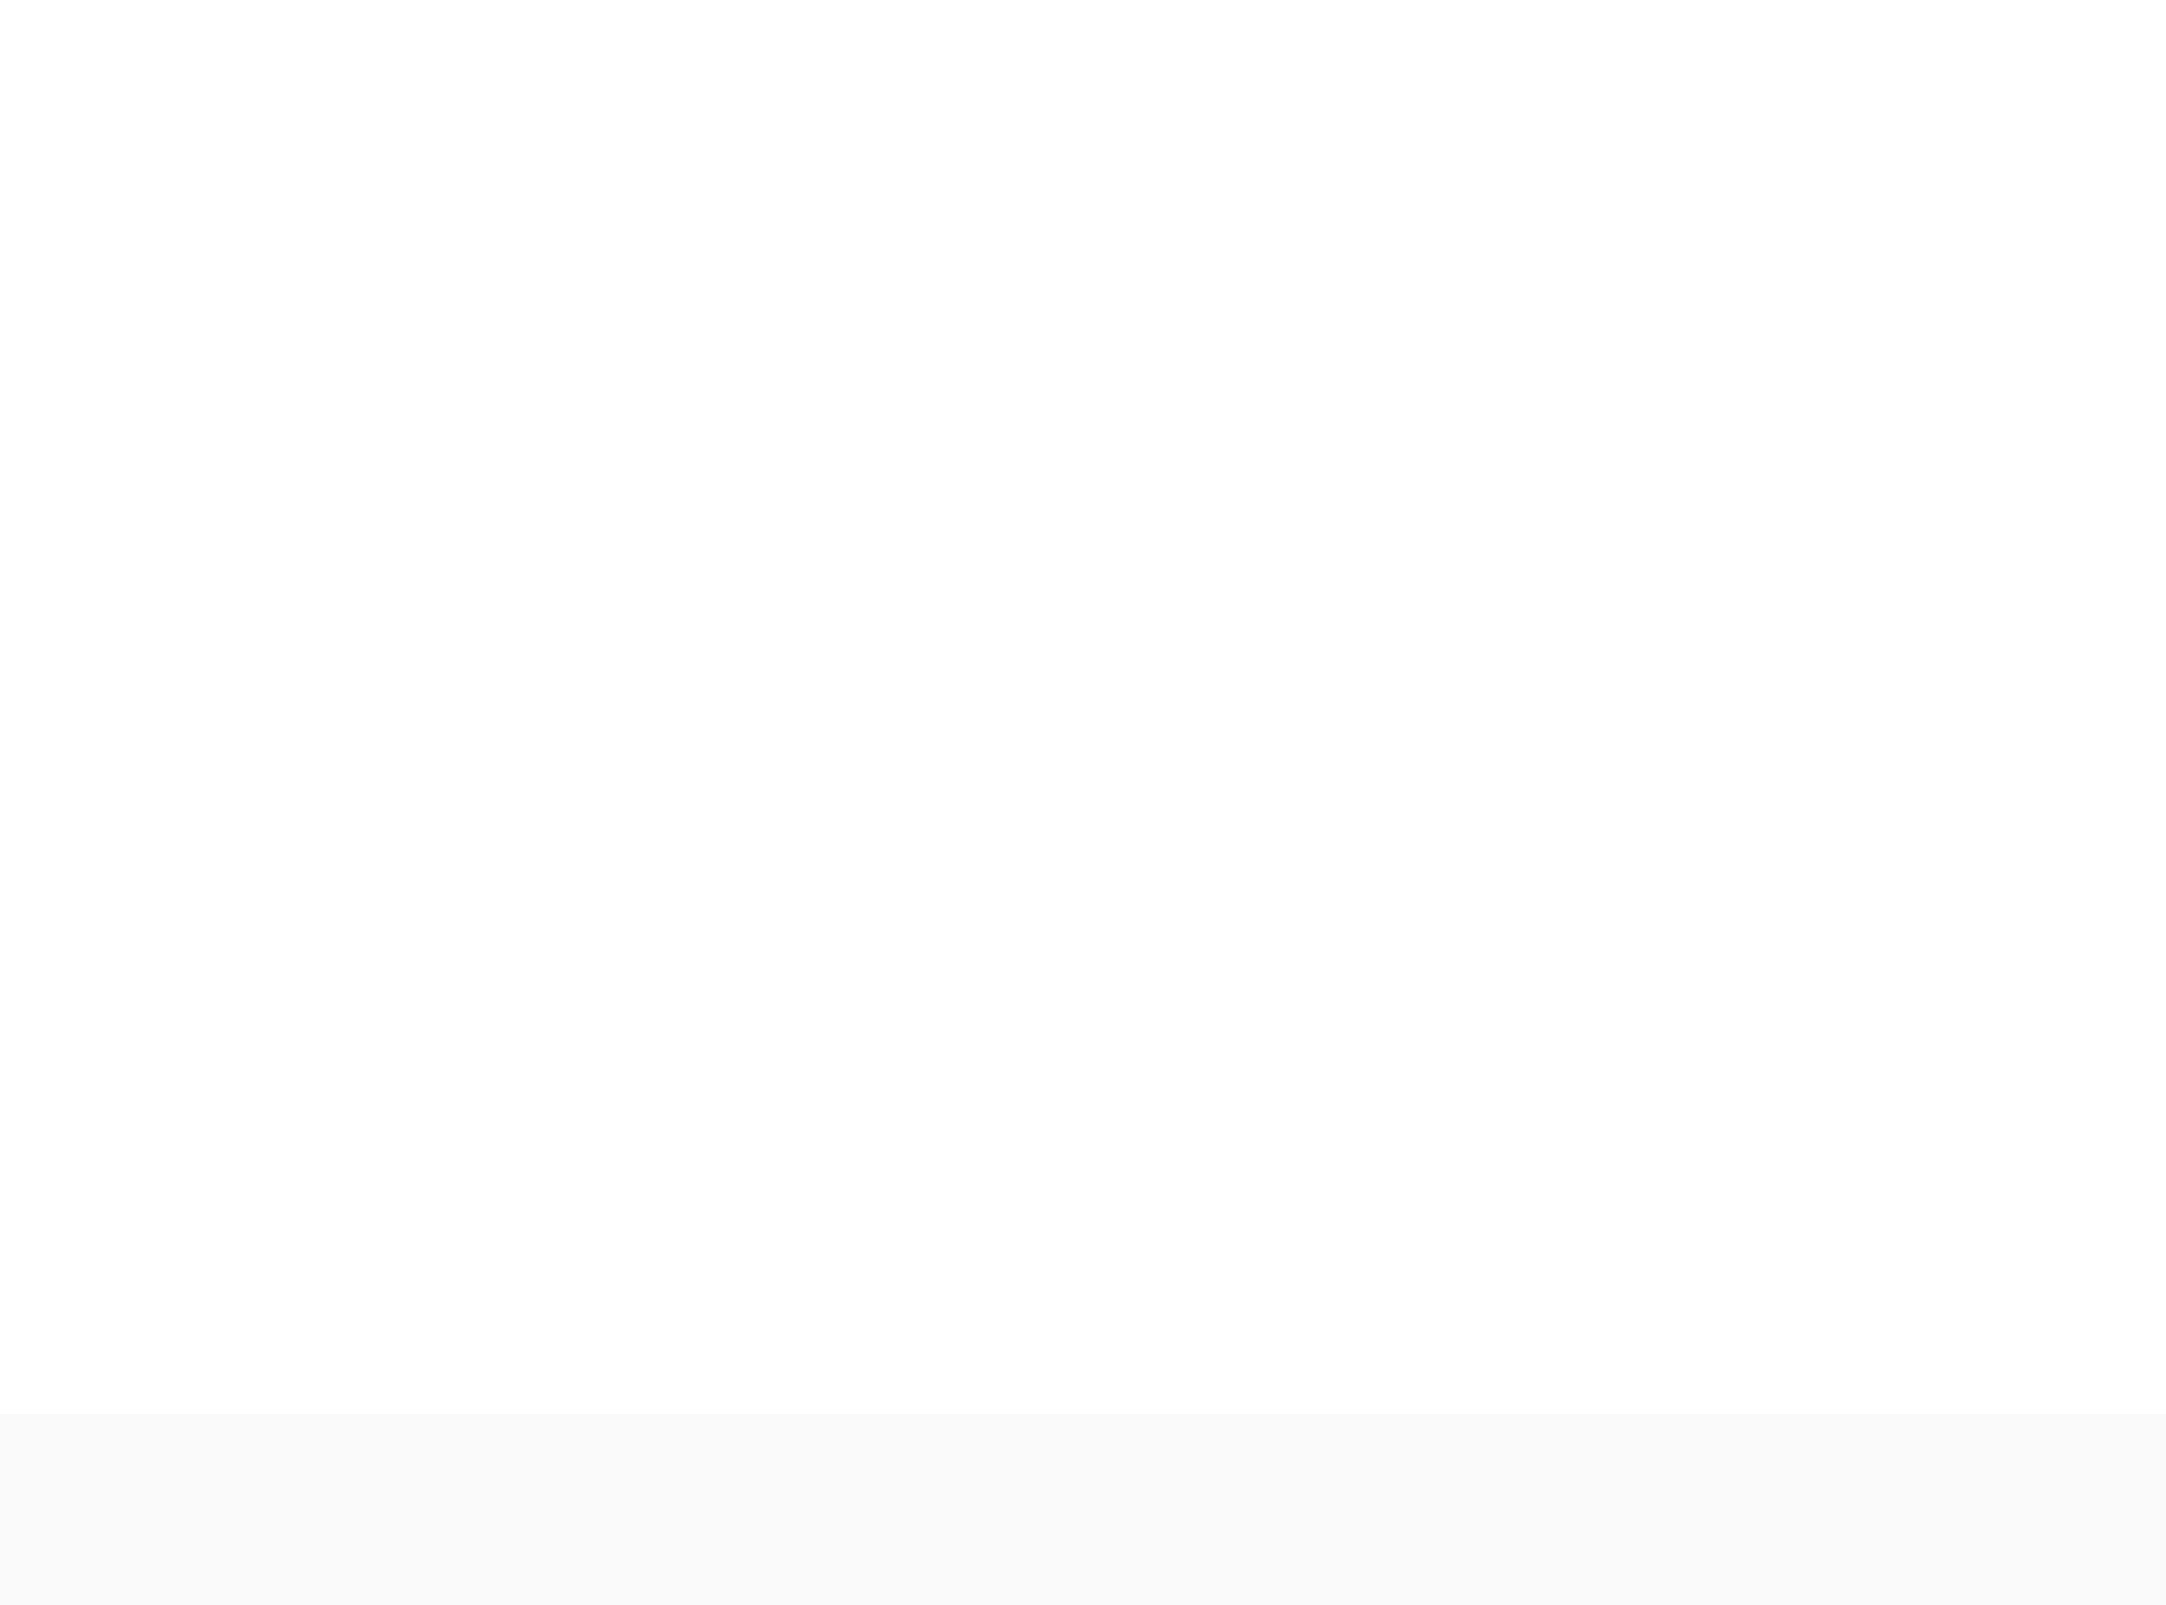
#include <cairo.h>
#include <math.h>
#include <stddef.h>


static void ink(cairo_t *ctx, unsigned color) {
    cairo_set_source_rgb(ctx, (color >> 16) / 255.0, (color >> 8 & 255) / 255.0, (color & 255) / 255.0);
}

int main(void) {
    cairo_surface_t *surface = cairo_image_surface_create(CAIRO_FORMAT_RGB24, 2166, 1605);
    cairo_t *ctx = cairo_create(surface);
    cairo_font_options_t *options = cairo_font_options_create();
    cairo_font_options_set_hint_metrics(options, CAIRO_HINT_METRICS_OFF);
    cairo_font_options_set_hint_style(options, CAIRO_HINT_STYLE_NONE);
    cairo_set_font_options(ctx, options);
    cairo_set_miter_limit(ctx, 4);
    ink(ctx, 0xFFFFFF);
    cairo_paint(ctx);
    ink(ctx, 0xFAFAFA);
    cairo_rectangle(ctx, 0, 1414, 2166, 191);
    cairo_fill(ctx);
    cairo_surface_write_to_png(surface, "image.png");
    cairo_font_options_destroy(options);
    cairo_destroy(ctx);
    cairo_surface_destroy(surface);
    return 0;
}
